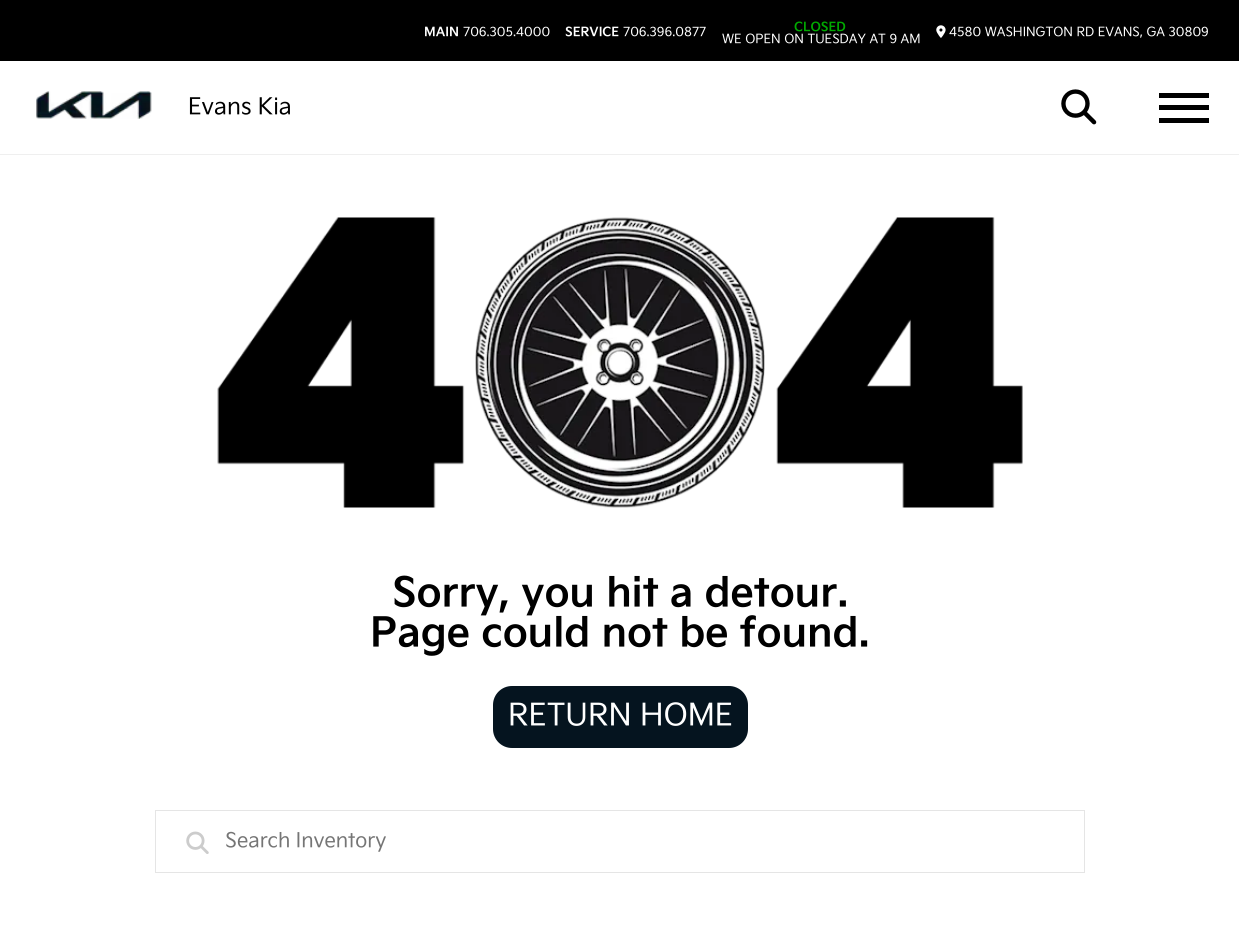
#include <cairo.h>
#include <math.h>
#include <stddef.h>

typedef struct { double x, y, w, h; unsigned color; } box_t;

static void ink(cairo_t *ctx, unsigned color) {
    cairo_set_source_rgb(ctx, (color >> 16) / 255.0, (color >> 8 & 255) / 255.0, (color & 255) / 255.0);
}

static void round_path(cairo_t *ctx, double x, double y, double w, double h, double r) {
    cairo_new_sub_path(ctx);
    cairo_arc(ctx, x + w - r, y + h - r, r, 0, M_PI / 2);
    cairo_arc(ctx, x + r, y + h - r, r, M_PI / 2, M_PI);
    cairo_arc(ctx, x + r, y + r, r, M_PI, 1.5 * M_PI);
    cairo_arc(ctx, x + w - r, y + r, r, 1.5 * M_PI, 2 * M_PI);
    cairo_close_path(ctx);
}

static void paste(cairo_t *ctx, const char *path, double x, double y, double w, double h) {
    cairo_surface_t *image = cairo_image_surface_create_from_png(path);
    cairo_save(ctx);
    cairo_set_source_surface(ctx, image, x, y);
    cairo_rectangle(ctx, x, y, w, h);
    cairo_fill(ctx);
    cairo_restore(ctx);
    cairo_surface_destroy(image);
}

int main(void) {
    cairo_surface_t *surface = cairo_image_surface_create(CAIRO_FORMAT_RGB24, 1239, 936);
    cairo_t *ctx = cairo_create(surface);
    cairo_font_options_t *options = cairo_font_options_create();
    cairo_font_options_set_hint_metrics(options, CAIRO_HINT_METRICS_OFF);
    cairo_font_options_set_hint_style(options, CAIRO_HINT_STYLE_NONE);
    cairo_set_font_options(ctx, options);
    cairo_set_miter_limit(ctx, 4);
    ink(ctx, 0xFFFFFF);
    cairo_paint(ctx);
    ink(ctx, 0x000000);
    cairo_rectangle(ctx, 0, 0, 1239, 61);
    cairo_fill(ctx);
    cairo_select_font_face(ctx, "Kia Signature", CAIRO_FONT_SLANT_NORMAL, CAIRO_FONT_WEIGHT_BOLD);
    cairo_set_font_size(ctx, 12.5);
    ink(ctx, 0xFFFFFF);
    cairo_move_to(ctx, 424, 36);
    cairo_show_text(ctx, "MAIN");
    cairo_select_font_face(ctx, "Kia Signature", CAIRO_FONT_SLANT_NORMAL, CAIRO_FONT_WEIGHT_NORMAL);
    cairo_move_to(ctx, 463, 36);
    cairo_show_text(ctx, "706.305.4000");
    cairo_select_font_face(ctx, "Kia Signature", CAIRO_FONT_SLANT_NORMAL, CAIRO_FONT_WEIGHT_BOLD);
    cairo_move_to(ctx, 565, 36);
    cairo_show_text(ctx, "SERVICE");
    cairo_select_font_face(ctx, "Kia Signature", CAIRO_FONT_SLANT_NORMAL, CAIRO_FONT_WEIGHT_NORMAL);
    cairo_move_to(ctx, 623, 36);
    cairo_show_text(ctx, "706.396.0877");
    cairo_select_font_face(ctx, "Kia Signature", CAIRO_FONT_SLANT_NORMAL, CAIRO_FONT_WEIGHT_BOLD);
    ink(ctx, 0x00A900);
    cairo_move_to(ctx, 794, 31);
    cairo_show_text(ctx, "CLOSED");
    cairo_select_font_face(ctx, "Kia Signature", CAIRO_FONT_SLANT_NORMAL, CAIRO_FONT_WEIGHT_NORMAL);
    ink(ctx, 0xFFFFFF);
    cairo_move_to(ctx, 722, 43);
    cairo_show_text(ctx, "WE OPEN ON TUESDAY AT 9 AM");
    paste(ctx, "media/1.png", 936, 25, 10, 13);
    cairo_move_to(ctx, 949, 36);
    cairo_show_text(ctx, "4580 WASHINGTON RD EVANS, GA 30809");
    ink(ctx, 0xEFEFEF);
    cairo_rectangle(ctx, 0, 154, 1239, 1);
    cairo_fill(ctx);
    paste(ctx, "media/2.png", 36, 91, 116, 28);
    cairo_set_font_size(ctx, 22.5);
    ink(ctx, 0x000000);
    cairo_move_to(ctx, 188, 114);
    cairo_show_text(ctx, "Evans Kia");
    paste(ctx, "media/3.png", 1061, 89, 36, 36);
    {
        static const box_t items[] = {
            {1159, 93, 50, 5, 0x000000},
            {1159, 105, 50, 5, 0x000000},
            {1159, 118, 50, 5, 0x000000},
        };
        for (size_t i = 0; i < sizeof items / sizeof *items; i++) {
            ink(ctx, items[i].color);
            cairo_rectangle(ctx, items[i].x, items[i].y, items[i].w, items[i].h);
            cairo_fill(ctx);
        }
    }
    paste(ctx, "media/4.png", 217, 217, 806, 291);
    cairo_select_font_face(ctx, "Kia Signature", CAIRO_FONT_SLANT_NORMAL, CAIRO_FONT_WEIGHT_BOLD);
    cairo_set_font_size(ctx, 40);
    cairo_move_to(ctx, 392, 606);
    cairo_show_text(ctx, "Sorry, you hit a detour.");
    cairo_move_to(ctx, 370, 646);
    cairo_show_text(ctx, "Page could not be found.");
    ink(ctx, 0x05141F);
    round_path(ctx, 493, 686, 255, 62, 19);
    cairo_fill(ctx);
    cairo_select_font_face(ctx, "Kia Signature", CAIRO_FONT_SLANT_NORMAL, CAIRO_FONT_WEIGHT_NORMAL);
    cairo_set_font_size(ctx, 30);
    ink(ctx, 0xFFFFFF);
    cairo_move_to(ctx, 508, 725);
    cairo_show_text(ctx, "RETURN HOME");
    cairo_rectangle(ctx, 155.5, 810.5, 929, 62);
    ink(ctx, 0xE5E5E5);
    cairo_set_line_width(ctx, 1);
    cairo_stroke(ctx);
    paste(ctx, "media/5.png", 186, 831, 23, 23);
    cairo_set_font_size(ctx, 20);
    ink(ctx, 0x757575);
    cairo_move_to(ctx, 225, 847);
    cairo_show_text(ctx, "Search Inventory");
    cairo_surface_write_to_png(surface, "image.png");
    cairo_font_options_destroy(options);
    cairo_destroy(ctx);
    cairo_surface_destroy(surface);
    return 0;
}
